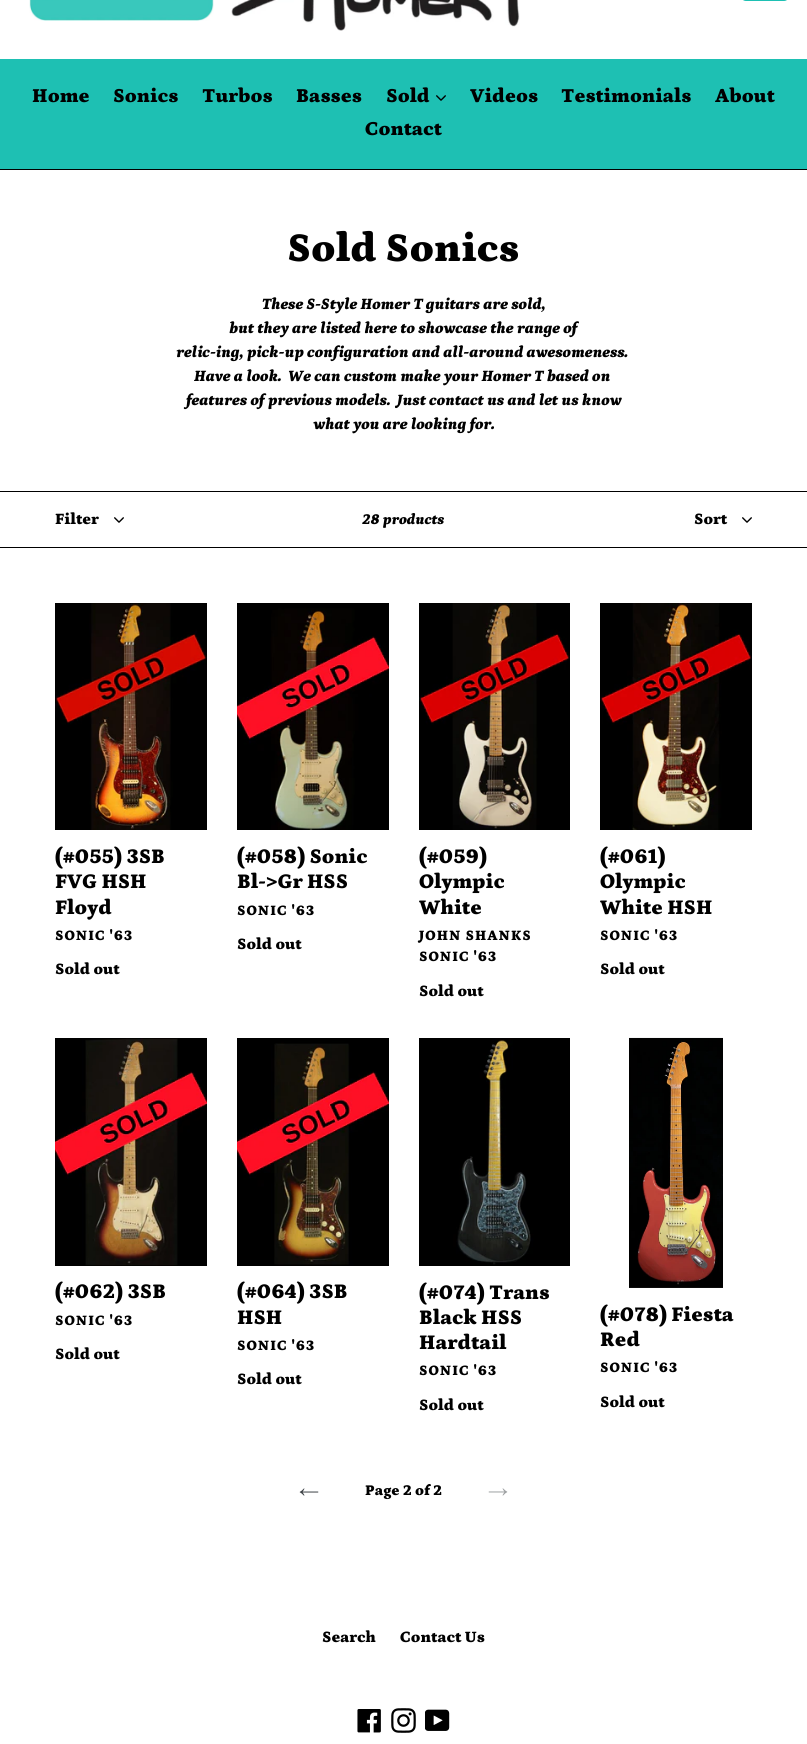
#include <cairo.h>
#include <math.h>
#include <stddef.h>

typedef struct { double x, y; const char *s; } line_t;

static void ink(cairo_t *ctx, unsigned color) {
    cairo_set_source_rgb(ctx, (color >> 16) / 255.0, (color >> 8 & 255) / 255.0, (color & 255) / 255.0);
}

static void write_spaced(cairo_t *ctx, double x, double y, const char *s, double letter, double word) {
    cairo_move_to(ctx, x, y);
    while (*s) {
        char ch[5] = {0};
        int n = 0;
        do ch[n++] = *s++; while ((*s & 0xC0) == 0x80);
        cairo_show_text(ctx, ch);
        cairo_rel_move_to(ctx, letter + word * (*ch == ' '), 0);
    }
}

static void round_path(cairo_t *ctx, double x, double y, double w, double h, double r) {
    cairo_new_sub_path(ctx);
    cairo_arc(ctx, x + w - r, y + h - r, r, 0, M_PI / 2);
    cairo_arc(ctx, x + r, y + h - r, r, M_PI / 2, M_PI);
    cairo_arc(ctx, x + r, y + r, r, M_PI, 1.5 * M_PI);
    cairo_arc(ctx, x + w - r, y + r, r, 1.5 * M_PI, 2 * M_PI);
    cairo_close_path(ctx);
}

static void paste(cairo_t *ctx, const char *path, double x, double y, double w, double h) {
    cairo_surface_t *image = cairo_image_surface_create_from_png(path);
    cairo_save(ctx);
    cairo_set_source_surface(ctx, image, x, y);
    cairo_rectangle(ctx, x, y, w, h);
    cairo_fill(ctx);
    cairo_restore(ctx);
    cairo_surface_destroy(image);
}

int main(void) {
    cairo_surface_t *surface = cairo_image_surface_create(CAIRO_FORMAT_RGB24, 807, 1744);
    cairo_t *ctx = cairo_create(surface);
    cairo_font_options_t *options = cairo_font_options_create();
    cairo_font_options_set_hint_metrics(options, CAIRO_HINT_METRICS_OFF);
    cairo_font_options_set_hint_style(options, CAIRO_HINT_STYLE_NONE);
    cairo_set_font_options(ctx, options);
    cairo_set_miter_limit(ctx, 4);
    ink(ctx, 0xFFFFFF);
    cairo_paint(ctx);
    round_path(ctx, 741.5, -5.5, 47, 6, 4.5);
    ink(ctx, 0x1EC0B3);
    cairo_set_line_width(ctx, 1);
    cairo_stroke(ctx);
    paste(ctx, "media/1.png", 29, 0, 185, 21);
    paste(ctx, "media/2.png", 231, 0, 289, 31);
    ink(ctx, 0x000000);
    cairo_rectangle(ctx, 0, 169, 807, 1);
    cairo_fill(ctx);
    ink(ctx, 0x1EC0B3);
    cairo_rectangle(ctx, 0, 59, 807, 110);
    cairo_fill(ctx);
    cairo_select_font_face(ctx, "Petrona Black", CAIRO_FONT_SLANT_NORMAL, CAIRO_FONT_WEIGHT_NORMAL);
    cairo_set_font_size(ctx, 20);
    ink(ctx, 0x000000);
    {
        static const line_t items[] = {
            {32, 102, "Home"},
            {113, 102, "Sonics"},
            {202, 102, "Turbos"},
            {296, 102, "Basses"},
            {386, 102, "Sold"},
        };
        for (size_t i = 0; i < sizeof items / sizeof *items; i++) {
            cairo_move_to(ctx, items[i].x, items[i].y);
            cairo_show_text(ctx, items[i].s);
        }
    }
    paste(ctx, "media/3.png", 436, 95, 10, 6);
    {
        static const line_t items[] = {
            {470, 102, "Videos"},
            {561, 102, "Testimonials"},
            {715, 102, "About"},
            {365, 135, "Contact"},
        };
        for (size_t i = 0; i < sizeof items / sizeof *items; i++) {
            cairo_move_to(ctx, items[i].x, items[i].y);
            cairo_show_text(ctx, items[i].s);
        }
    }
    cairo_set_font_size(ctx, 41);
    cairo_move_to(ctx, 287, 261);
    cairo_show_text(ctx, "Sold Sonics");
    cairo_select_font_face(ctx, "Petrona Black", CAIRO_FONT_SLANT_ITALIC, CAIRO_FONT_WEIGHT_NORMAL);
    cairo_set_font_size(ctx, 16);
    {
        static const line_t items[] = {
            {262, 309, "These S-Style Homer T guitars are sold,"},
            {229, 333, "but they are listed here to showcase the range of"},
            {176, 357, "relic-ing, pick-up configuration and all-around awesomeness."},
            {194, 381, "Have a look.  We can custom make your Homer T based on"},
            {186, 405, "features of previous models.  Just contact us and let us know"},
            {313, 429, "what you are looking for."},
        };
        for (size_t i = 0; i < sizeof items / sizeof *items; i++) {
            cairo_move_to(ctx, items[i].x, items[i].y);
            cairo_show_text(ctx, items[i].s);
        }
    }
    cairo_rectangle(ctx, 0, 491, 807, 1);
    cairo_fill(ctx);
    cairo_rectangle(ctx, 0, 547, 807, 1);
    cairo_fill(ctx);
    cairo_select_font_face(ctx, "Petrona Black", CAIRO_FONT_SLANT_NORMAL, CAIRO_FONT_WEIGHT_NORMAL);
    cairo_move_to(ctx, 55, 524);
    cairo_show_text(ctx, "Filter");
    paste(ctx, "media/4.png", 114, 517, 10, 6);
    cairo_select_font_face(ctx, "Petrona Black", CAIRO_FONT_SLANT_ITALIC, CAIRO_FONT_WEIGHT_NORMAL);
    cairo_set_font_size(ctx, 15);
    cairo_move_to(ctx, 362, 524);
    cairo_show_text(ctx, "28 products");
    cairo_select_font_face(ctx, "Petrona Black", CAIRO_FONT_SLANT_NORMAL, CAIRO_FONT_WEIGHT_NORMAL);
    cairo_set_font_size(ctx, 16);
    cairo_move_to(ctx, 694, 524);
    cairo_show_text(ctx, "Sort");
    paste(ctx, "media/4.png", 742, 517, 10, 6);
    paste(ctx, "media/5.png", 55, 603, 152, 227);
    cairo_set_font_size(ctx, 21);
    {
        static const line_t items[] = {
            {55, 863, "(#055) 3SB"},
            {55, 888, "FVG HSH"},
            {55, 914, "Floyd"},
        };
        for (size_t i = 0; i < sizeof items / sizeof *items; i++) {
            cairo_move_to(ctx, items[i].x, items[i].y);
            cairo_show_text(ctx, items[i].s);
        }
    }
    cairo_set_font_size(ctx, 14.5);
    write_spaced(ctx, 55, 940, "SONIC '63", 1, 0);
    cairo_set_font_size(ctx, 16);
    cairo_move_to(ctx, 55, 974);
    cairo_show_text(ctx, "Sold out");
    paste(ctx, "media/6.png", 237, 603, 152, 227);
    cairo_set_font_size(ctx, 21);
    cairo_move_to(ctx, 237, 863);
    cairo_show_text(ctx, "(#058) Sonic");
    cairo_move_to(ctx, 237, 888);
    cairo_show_text(ctx, "Bl->Gr HSS");
    cairo_set_font_size(ctx, 14.5);
    write_spaced(ctx, 237, 915, "SONIC '63", 1, 0);
    cairo_set_font_size(ctx, 16);
    cairo_move_to(ctx, 237, 949);
    cairo_show_text(ctx, "Sold out");
    paste(ctx, "media/7.png", 419, 603, 151, 227);
    cairo_set_font_size(ctx, 21);
    {
        static const line_t items[] = {
            {419, 863, "(#059)"},
            {419, 888, "Olympic"},
            {419, 914, "White"},
        };
        for (size_t i = 0; i < sizeof items / sizeof *items; i++) {
            cairo_move_to(ctx, items[i].x, items[i].y);
            cairo_show_text(ctx, items[i].s);
        }
    }
    cairo_set_font_size(ctx, 14.5);
    write_spaced(ctx, 419, 940, "JOHN SHANKS", 1, 0);
    write_spaced(ctx, 419, 961, "SONIC '63", 1, 0);
    cairo_set_font_size(ctx, 16);
    cairo_move_to(ctx, 419, 996);
    cairo_show_text(ctx, "Sold out");
    paste(ctx, "media/8.png", 600, 603, 152, 227);
    cairo_set_font_size(ctx, 21);
    {
        static const line_t items[] = {
            {600, 863, "(#061)"},
            {600, 888, "Olympic"},
            {600, 914, "White HSH"},
        };
        for (size_t i = 0; i < sizeof items / sizeof *items; i++) {
            cairo_move_to(ctx, items[i].x, items[i].y);
            cairo_show_text(ctx, items[i].s);
        }
    }
    cairo_set_font_size(ctx, 14.5);
    write_spaced(ctx, 600, 940, "SONIC '63", 1, 0);
    cairo_set_font_size(ctx, 16);
    cairo_move_to(ctx, 600, 974);
    cairo_show_text(ctx, "Sold out");
    paste(ctx, "media/9.png", 55, 1038, 152, 228);
    cairo_set_font_size(ctx, 21);
    cairo_move_to(ctx, 55, 1298);
    cairo_show_text(ctx, "(#062) 3SB");
    cairo_set_font_size(ctx, 14.5);
    write_spaced(ctx, 55, 1325, "SONIC '63", 1, 0);
    cairo_set_font_size(ctx, 16);
    cairo_move_to(ctx, 55, 1359);
    cairo_show_text(ctx, "Sold out");
    paste(ctx, "media/10.png", 237, 1038, 152, 228);
    cairo_set_font_size(ctx, 21);
    cairo_move_to(ctx, 237, 1298);
    cairo_show_text(ctx, "(#064) 3SB");
    cairo_move_to(ctx, 237, 1324);
    cairo_show_text(ctx, "HSH");
    cairo_set_font_size(ctx, 14.5);
    write_spaced(ctx, 237, 1350, "SONIC '63", 1, 0);
    cairo_set_font_size(ctx, 16);
    cairo_move_to(ctx, 237, 1384);
    cairo_show_text(ctx, "Sold out");
    paste(ctx, "media/11.png", 419, 1038, 151, 228);
    cairo_set_font_size(ctx, 21);
    {
        static const line_t items[] = {
            {419, 1299, "(#074) Trans"},
            {419, 1324, "Black HSS"},
            {419, 1349, "Hardtail"},
        };
        for (size_t i = 0; i < sizeof items / sizeof *items; i++) {
            cairo_move_to(ctx, items[i].x, items[i].y);
            cairo_show_text(ctx, items[i].s);
        }
    }
    cairo_set_font_size(ctx, 14.5);
    write_spaced(ctx, 419, 1375, "SONIC '63", 1, 0);
    cairo_set_font_size(ctx, 16);
    cairo_move_to(ctx, 419, 1410);
    cairo_show_text(ctx, "Sold out");
    paste(ctx, "media/12.png", 629, 1037, 94, 251);
    cairo_set_font_size(ctx, 21);
    cairo_move_to(ctx, 600, 1321);
    cairo_show_text(ctx, "(#078) Fiesta");
    cairo_move_to(ctx, 600, 1346);
    cairo_show_text(ctx, "Red");
    cairo_set_font_size(ctx, 14.5);
    write_spaced(ctx, 600, 1372, "SONIC '63", 1, 0);
    cairo_set_font_size(ctx, 16);
    cairo_move_to(ctx, 600, 1407);
    cairo_show_text(ctx, "Sold out");
    paste(ctx, "media/13.png", 299, 1488, 20, 8);
    cairo_set_font_size(ctx, 15);
    cairo_move_to(ctx, 365, 1495);
    cairo_show_text(ctx, "Page 2 of 2");
    paste(ctx, "media/14.png", 488, 1488, 20, 8);
    cairo_set_font_size(ctx, 16);
    cairo_move_to(ctx, 322, 1642);
    cairo_show_text(ctx, "Search");
    cairo_move_to(ctx, 400, 1642);
    cairo_show_text(ctx, "Contact Us");
    paste(ctx, "media/15.png", 357, 1709, 24, 24);
    paste(ctx, "media/16.png", 391, 1708, 25, 25);
    paste(ctx, "media/17.png", 425, 1709, 25, 22);
    cairo_surface_write_to_png(surface, "image.png");
    cairo_font_options_destroy(options);
    cairo_destroy(ctx);
    cairo_surface_destroy(surface);
    return 0;
}
